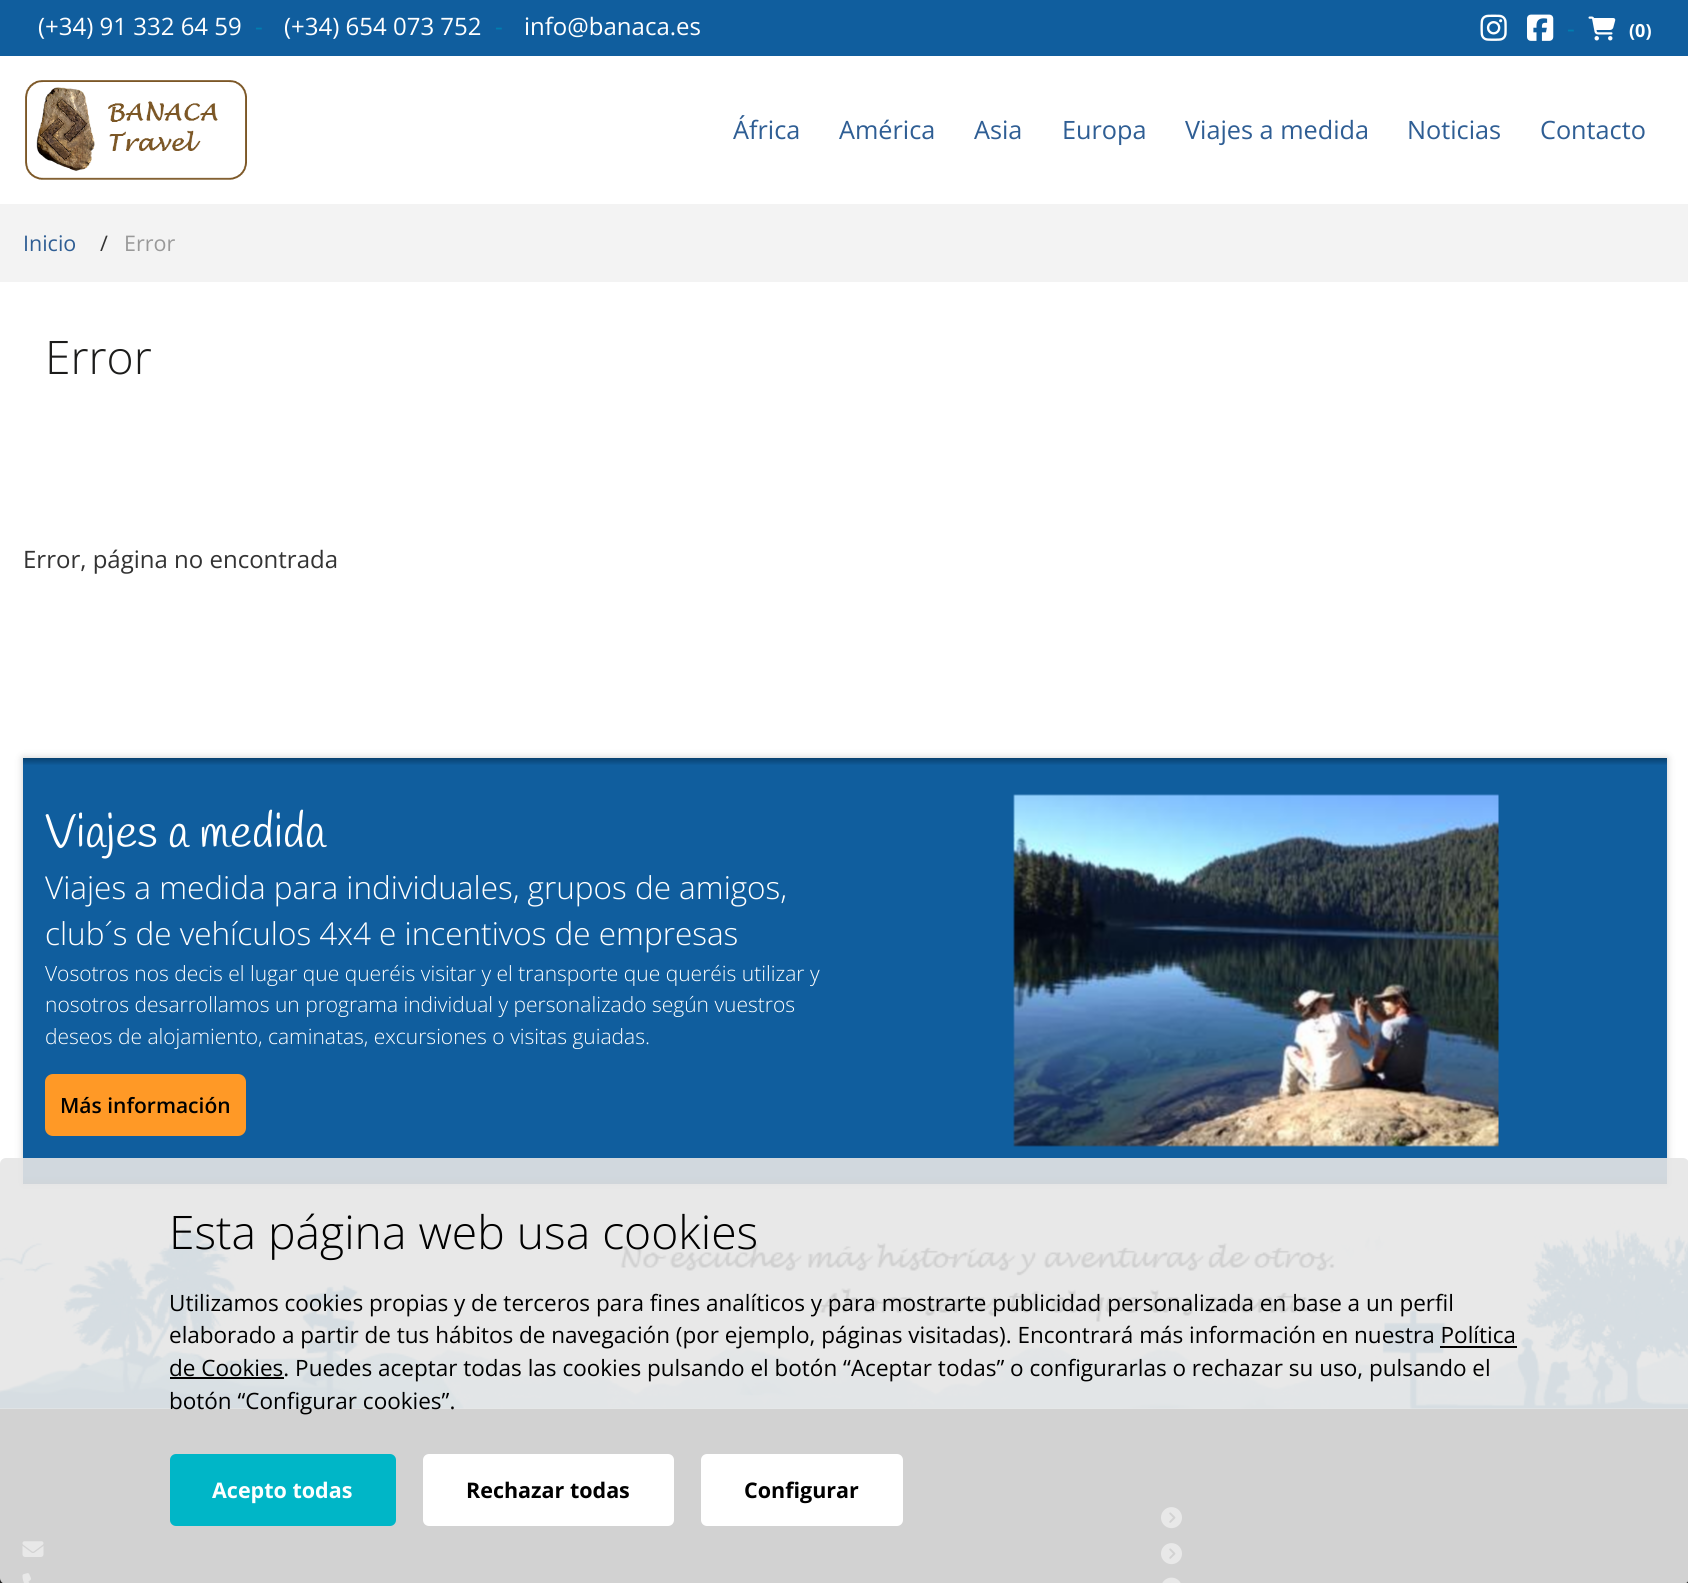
#include <cairo.h>
#include <math.h>
#include <stddef.h>

typedef struct { double x, y; const char *s; } line_t;

static void ink(cairo_t *ctx, unsigned color) {
    cairo_set_source_rgb(ctx, (color >> 16) / 255.0, (color >> 8 & 255) / 255.0, (color & 255) / 255.0);
}

static void round_path(cairo_t *ctx, double x, double y, double w, double h, double r) {
    cairo_new_sub_path(ctx);
    cairo_arc(ctx, x + w - r, y + h - r, r, 0, M_PI / 2);
    cairo_arc(ctx, x + r, y + h - r, r, M_PI / 2, M_PI);
    cairo_arc(ctx, x + r, y + r, r, M_PI, 1.5 * M_PI);
    cairo_arc(ctx, x + w - r, y + r, r, 1.5 * M_PI, 2 * M_PI);
    cairo_close_path(ctx);
}

static void blur_box(cairo_t *ctx, double x, double y, double w, double h, double r, double blur, double alpha) {
    cairo_push_group_with_content(ctx, CAIRO_CONTENT_ALPHA);
    cairo_set_operator(ctx, CAIRO_OPERATOR_SOURCE);
    for (int i = 15; i >= -15 && fmin(w, h) + blur * i / 3 > 0; i -= 2) {
        double e = blur * i / 6;
        cairo_set_source_rgba(ctx, 0, 0, 0, alpha * erfc((i - 1) / 8.5) / 2);
        round_path(ctx, x - e, y - e, w + 2 * e, h + 2 * e, fmax(0, fmin(r + e + blur * .6, fmin(w, h) / 2 + e)));
        cairo_fill(ctx);
    }
    cairo_pattern_t *soft = cairo_pop_group(ctx);
    cairo_mask(ctx, soft);
    cairo_pattern_destroy(soft);
}

static void paste(cairo_t *ctx, const char *path, double x, double y, double w, double h) {
    cairo_surface_t *image = cairo_image_surface_create_from_png(path);
    cairo_save(ctx);
    cairo_set_source_surface(ctx, image, x, y);
    cairo_rectangle(ctx, x, y, w, h);
    cairo_fill(ctx);
    cairo_restore(ctx);
    cairo_surface_destroy(image);
}

int main(void) {
    cairo_surface_t *surface = cairo_image_surface_create(CAIRO_FORMAT_RGB24, 1688, 1583);
    cairo_t *ctx = cairo_create(surface);
    cairo_font_options_t *options = cairo_font_options_create();
    cairo_font_options_set_hint_metrics(options, CAIRO_HINT_METRICS_OFF);
    cairo_font_options_set_hint_style(options, CAIRO_HINT_STYLE_NONE);
    cairo_set_font_options(ctx, options);
    cairo_set_miter_limit(ctx, 4);
    cairo_pattern_t *gradient;
    ink(ctx, 0xFFFFFF);
    cairo_paint(ctx);
    ink(ctx, 0x105E9E);
    cairo_rectangle(ctx, 0, 0, 1688, 56);
    cairo_fill(ctx);
    cairo_select_font_face(ctx, "Open Sans", CAIRO_FONT_SLANT_NORMAL, CAIRO_FONT_WEIGHT_NORMAL);
    cairo_set_font_size(ctx, 24);
    ink(ctx, 0xFFFFFF);
    cairo_move_to(ctx, 38, 35);
    cairo_show_text(ctx, "(+34) 91 332 64 59");
    ink(ctx, 0x007EB0);
    cairo_move_to(ctx, 255, 35);
    cairo_show_text(ctx, "-");
    ink(ctx, 0xFFFFFF);
    cairo_move_to(ctx, 284, 35);
    cairo_show_text(ctx, "(+34) 654 073 752");
    ink(ctx, 0x007EB0);
    cairo_move_to(ctx, 495, 35);
    cairo_show_text(ctx, "-");
    ink(ctx, 0xFFFFFF);
    cairo_move_to(ctx, 524, 35);
    cairo_show_text(ctx, "info@banaca.es");
    paste(ctx, "media/1.png", 1480, 14, 27, 27);
    paste(ctx, "media/2.png", 1527, 14, 27, 27);
    ink(ctx, 0x007EB0);
    cairo_move_to(ctx, 1567, 37);
    cairo_show_text(ctx, "-");
    paste(ctx, "media/3.png", 1588, 16, 28, 25);
    cairo_select_font_face(ctx, "Open Sans", CAIRO_FONT_SLANT_NORMAL, CAIRO_FONT_WEIGHT_BOLD);
    cairo_set_font_size(ctx, 18);
    ink(ctx, 0xFFFFFF);
    cairo_move_to(ctx, 1629, 37);
    cairo_show_text(ctx, "(0)");
    paste(ctx, "media/4.png", 25, 80, 222, 100);
    cairo_select_font_face(ctx, "Open Sans", CAIRO_FONT_SLANT_NORMAL, CAIRO_FONT_WEIGHT_NORMAL);
    cairo_set_font_size(ctx, 25.25);
    ink(ctx, 0x2F5E94);
    {
        static const line_t items[] = {
            {733, 139, "África"},
            {839, 139, "América"},
            {974, 139, "Asia"},
            {1062, 139, "Europa"},
            {1185, 139, "Viajes a medida"},
            {1407, 139, "Noticias"},
            {1540, 139, "Contacto"},
        };
        for (size_t i = 0; i < sizeof items / sizeof *items; i++) {
            cairo_move_to(ctx, items[i].x, items[i].y);
            cairo_show_text(ctx, items[i].s);
        }
    }
    ink(ctx, 0xF3F3F3);
    cairo_rectangle(ctx, 0, 204, 1688, 78);
    cairo_fill(ctx);
    cairo_set_font_size(ctx, 21.5);
    ink(ctx, 0x2F5E94);
    cairo_move_to(ctx, 23, 251);
    cairo_show_text(ctx, "Inicio");
    ink(ctx, 0x333333);
    cairo_move_to(ctx, 100, 251);
    cairo_show_text(ctx, "/");
    ink(ctx, 0x999999);
    cairo_move_to(ctx, 124, 251);
    cairo_show_text(ctx, "Error");
    cairo_select_font_face(ctx, "Open Sans Light", CAIRO_FONT_SLANT_NORMAL, CAIRO_FONT_WEIGHT_NORMAL);
    cairo_set_font_size(ctx, 46.25);
    ink(ctx, 0x1C1C1B);
    cairo_move_to(ctx, 45, 374);
    cairo_show_text(ctx, "Error");
    cairo_select_font_face(ctx, "Open Sans", CAIRO_FONT_SLANT_NORMAL, CAIRO_FONT_WEIGHT_NORMAL);
    cairo_set_font_size(ctx, 24);
    ink(ctx, 0x333333);
    cairo_move_to(ctx, 23, 568);
    cairo_show_text(ctx, "Error, página no encontrada");
    ink(ctx, 0x000000);
    blur_box(ctx, 23, 758, 1644, 426, 0, 4, 0.2);
    gradient = cairo_pattern_create_linear(845, 757, 845, 1184);
    cairo_pattern_add_color_stop_rgba(gradient, 0, 0.027, 0.239, 0.412, 1);
    cairo_pattern_add_color_stop_rgba(gradient, 0.02, 0.063, 0.369, 0.62, 1);
    cairo_pattern_add_color_stop_rgba(gradient, 0.98, 0.063, 0.369, 0.62, 1);
    cairo_pattern_add_color_stop_rgba(gradient, 1, 0.027, 0.239, 0.412, 1);
    cairo_set_source(ctx, gradient);
    cairo_pattern_destroy(gradient);
    cairo_rectangle(ctx, 23, 758, 1644, 426);
    cairo_fill(ctx);
    cairo_select_font_face(ctx, "Handlee", CAIRO_FONT_SLANT_NORMAL, CAIRO_FONT_WEIGHT_NORMAL);
    cairo_set_font_size(ctx, 46.25);
    ink(ctx, 0xFFFFFF);
    cairo_move_to(ctx, 45, 847);
    cairo_show_text(ctx, "Viajes a medida");
    cairo_select_font_face(ctx, "Open Sans Light", CAIRO_FONT_SLANT_NORMAL, CAIRO_FONT_WEIGHT_NORMAL);
    cairo_set_font_size(ctx, 31.5);
    cairo_move_to(ctx, 45, 899);
    cairo_show_text(ctx, "Viajes a medida para individuales, grupos de amigos,");
    cairo_move_to(ctx, 45, 945);
    cairo_show_text(ctx, "club´s de vehículos 4x4 e incentivos de empresas");
    cairo_set_font_size(ctx, 21);
    {
        static const line_t items[] = {
            {45, 981, "Vosotros nos decis el lugar que queréis visitar y el transporte que queréis utilizar y"},
            {45, 1012, "nosotros desarrollamos un programa individual y personalizado según vuestros"},
            {45, 1044, "deseos de alojamiento, caminatas, excursiones o visitas guiadas."},
        };
        for (size_t i = 0; i < sizeof items / sizeof *items; i++) {
            cairo_move_to(ctx, items[i].x, items[i].y);
            cairo_show_text(ctx, items[i].s);
        }
    }
    ink(ctx, 0xFF9926);
    round_path(ctx, 45, 1074, 201, 62, 8);
    cairo_fill(ctx);
    cairo_select_font_face(ctx, "Open Sans SemiBold", CAIRO_FONT_SLANT_NORMAL, CAIRO_FONT_WEIGHT_NORMAL);
    ink(ctx, 0x000000);
    cairo_move_to(ctx, 60, 1113);
    cairo_show_text(ctx, "Más información");
    paste(ctx, "media/5.png", 1013, 794, 486, 353);
    paste(ctx, "media/6.png", 0, 1222, 1688, 187);
    ink(ctx, 0x222222);
    cairo_rectangle(ctx, 0, 1409, 1688, 174);
    cairo_fill(ctx);
    paste(ctx, "media/7.png", 22, 1541, 22, 16);
    paste(ctx, "media/8.png", 22, 1573, 9, 10);
    paste(ctx, "media/9.png", 1161, 1507, 21, 22);
    paste(ctx, "media/9.png", 1161, 1543, 21, 22);
    paste(ctx, "media/10.png", 1162, 1577, 19, 6);
    cairo_set_source_rgba(ctx, 0.902, 0.902, 0.902, 0.9);
    round_path(ctx, 0, 1158, 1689, 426, 6);
    cairo_fill(ctx);
    cairo_select_font_face(ctx, "Open Sans Light", CAIRO_FONT_SLANT_NORMAL, CAIRO_FONT_WEIGHT_NORMAL);
    cairo_set_font_size(ctx, 46.25);
    ink(ctx, 0x000000);
    cairo_move_to(ctx, 169, 1249);
    cairo_show_text(ctx, "Esta página web usa cookies");
    cairo_select_font_face(ctx, "Open Sans", CAIRO_FONT_SLANT_NORMAL, CAIRO_FONT_WEIGHT_NORMAL);
    cairo_set_font_size(ctx, 22.5);
    cairo_move_to(ctx, 169, 1311);
    cairo_show_text(ctx, "Utilizamos cookies propias y de terceros para fines analíticos y para mostrarte publicidad personalizada en base a un perfil");
    cairo_move_to(ctx, 169, 1343);
    cairo_show_text(ctx, "elaborado a partir de tus hábitos de navegación (por ejemplo, páginas visitadas). Encontrará más información en nuestra Política");
    cairo_rectangle(ctx, 170, 1377, 114, 2);
    cairo_fill(ctx);
    cairo_move_to(ctx, 169, 1376);
    cairo_show_text(ctx, "de Cookies. Puedes aceptar todas las cookies pulsando el botón “Aceptar todas” o configurarlas o rechazar su uso, pulsando el");
    cairo_rectangle(ctx, 1440, 1346, 77, 2);
    cairo_fill(ctx);
    cairo_move_to(ctx, 169, 1409);
    cairo_show_text(ctx, "botón “Configurar cookies”.");
    ink(ctx, 0x00B6C7);
    round_path(ctx, 170, 1454, 226, 72, 6);
    cairo_fill(ctx);
    cairo_select_font_face(ctx, "Open Sans", CAIRO_FONT_SLANT_NORMAL, CAIRO_FONT_WEIGHT_BOLD);
    cairo_set_font_size(ctx, 21.5);
    ink(ctx, 0xFFFFFF);
    cairo_move_to(ctx, 212, 1498);
    cairo_show_text(ctx, "Acepto todas");
    round_path(ctx, 423, 1454, 251, 72, 6);
    cairo_fill(ctx);
    ink(ctx, 0x000000);
    cairo_move_to(ctx, 466, 1498);
    cairo_show_text(ctx, "Rechazar todas");
    ink(ctx, 0xFFFFFF);
    round_path(ctx, 701, 1454, 202, 72, 6);
    cairo_fill(ctx);
    ink(ctx, 0x000000);
    cairo_move_to(ctx, 744, 1498);
    cairo_show_text(ctx, "Configurar");
    cairo_surface_write_to_png(surface, "image.png");
    cairo_font_options_destroy(options);
    cairo_destroy(ctx);
    cairo_surface_destroy(surface);
    return 0;
}
